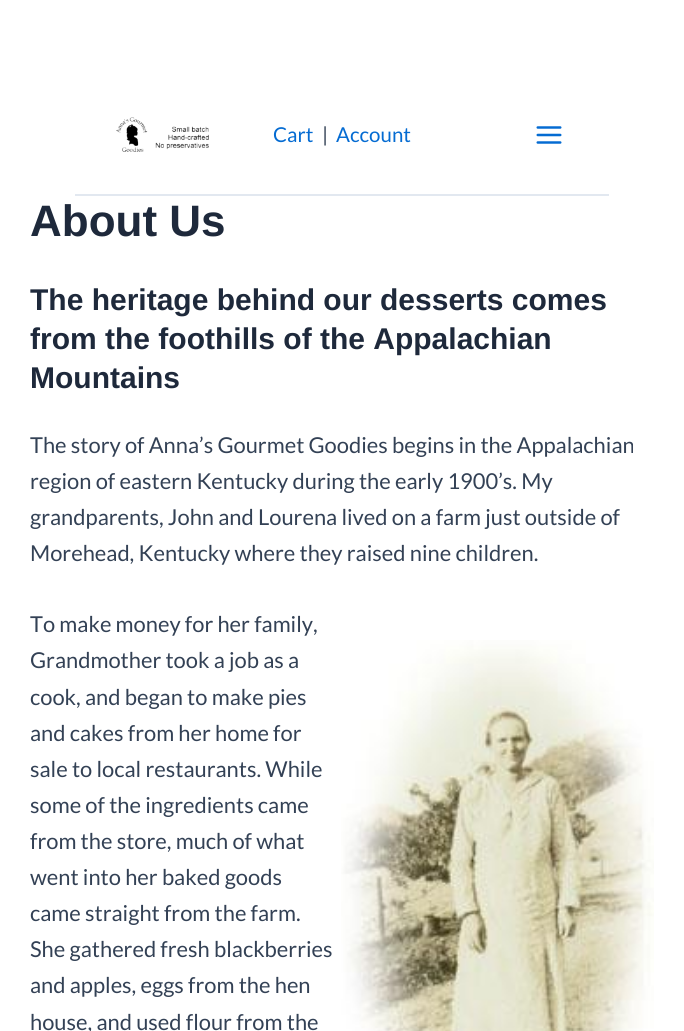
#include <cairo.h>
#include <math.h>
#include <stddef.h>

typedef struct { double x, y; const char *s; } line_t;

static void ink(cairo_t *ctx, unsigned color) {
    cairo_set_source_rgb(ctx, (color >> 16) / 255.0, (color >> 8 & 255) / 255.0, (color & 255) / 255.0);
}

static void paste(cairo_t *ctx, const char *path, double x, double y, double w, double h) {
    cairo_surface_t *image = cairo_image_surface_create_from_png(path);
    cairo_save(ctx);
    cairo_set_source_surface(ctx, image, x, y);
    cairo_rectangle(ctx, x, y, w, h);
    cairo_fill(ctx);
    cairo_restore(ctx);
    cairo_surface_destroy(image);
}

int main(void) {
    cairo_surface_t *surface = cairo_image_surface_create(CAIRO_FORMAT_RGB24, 684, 1031);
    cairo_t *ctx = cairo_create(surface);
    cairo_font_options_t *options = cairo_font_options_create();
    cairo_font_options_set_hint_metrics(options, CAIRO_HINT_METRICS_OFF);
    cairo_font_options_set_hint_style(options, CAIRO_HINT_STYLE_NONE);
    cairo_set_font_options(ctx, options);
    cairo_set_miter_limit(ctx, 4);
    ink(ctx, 0xFFFFFF);
    cairo_paint(ctx);
    ink(ctx, 0xE2E8F0);
    cairo_rectangle(ctx, 75, 194, 534, 2);
    cairo_fill(ctx);
    paste(ctx, "media/1.png", 116, 117, 93, 35);
    cairo_select_font_face(ctx, "Lato", CAIRO_FONT_SLANT_NORMAL, CAIRO_FONT_WEIGHT_NORMAL);
    cairo_set_font_size(ctx, 20.5);
    ink(ctx, 0x046BD2);
    cairo_move_to(ctx, 273, 142);
    cairo_show_text(ctx, "Cart");
    ink(ctx, 0x334155);
    cairo_move_to(ctx, 322, 142);
    cairo_show_text(ctx, "|");
    ink(ctx, 0x046BD2);
    cairo_move_to(ctx, 336, 142);
    cairo_show_text(ctx, "Account");
    paste(ctx, "media/2.png", 536, 126, 26, 18);
    cairo_select_font_face(ctx, "Liberation Sans", CAIRO_FONT_SLANT_NORMAL, CAIRO_FONT_WEIGHT_BOLD);
    cairo_set_font_size(ctx, 44);
    ink(ctx, 0x1E293B);
    cairo_move_to(ctx, 30, 236);
    cairo_show_text(ctx, "About Us");
    cairo_set_font_size(ctx, 30);
    {
        static const line_t items[] = {
            {30, 310, "The heritage behind our desserts comes"},
            {30, 349, "from the foothills of the Appalachian"},
            {30, 388, "Mountains"},
        };
        for (size_t i = 0; i < sizeof items / sizeof *items; i++) {
            cairo_move_to(ctx, items[i].x, items[i].y);
            cairo_show_text(ctx, items[i].s);
        }
    }
    cairo_select_font_face(ctx, "Lato", CAIRO_FONT_SLANT_NORMAL, CAIRO_FONT_WEIGHT_NORMAL);
    cairo_set_font_size(ctx, 21.9);
    ink(ctx, 0x334155);
    {
        static const line_t items[] = {
            {30, 453, "The story of Anna’s Gourmet Goodies begins in the Appalachian"},
            {30, 489, "region of eastern Kentucky during the early 1900’s. My"},
            {30, 525, "grandparents, John and Lourena lived on a farm just outside of"},
            {30, 561, "Morehead, Kentucky where they raised nine children."},
            {30, 632, "To make money for her family,"},
            {30, 668, "Grandmother took a job as a"},
            {30, 705, "cook, and began to make pies"},
            {30, 741, "and cakes from her home for"},
            {30, 777, "sale to local restaurants. While"},
            {30, 813, "some of the ingredients came"},
            {30, 849, "from the store, much of what"},
            {30, 885, "went into her baked goods"},
            {30, 921, "came straight from the farm."},
            {30, 957, "She gathered fresh blackberries"},
            {30, 993, "and apples, eggs from the hen"},
            {30, 1030, "house, and used flour from the"},
        };
        for (size_t i = 0; i < sizeof items / sizeof *items; i++) {
            cairo_move_to(ctx, items[i].x, items[i].y);
            cairo_show_text(ctx, items[i].s);
        }
    }
    paste(ctx, "media/3.png", 341, 640, 313, 391);
    cairo_surface_write_to_png(surface, "image.png");
    cairo_font_options_destroy(options);
    cairo_destroy(ctx);
    cairo_surface_destroy(surface);
    return 0;
}
